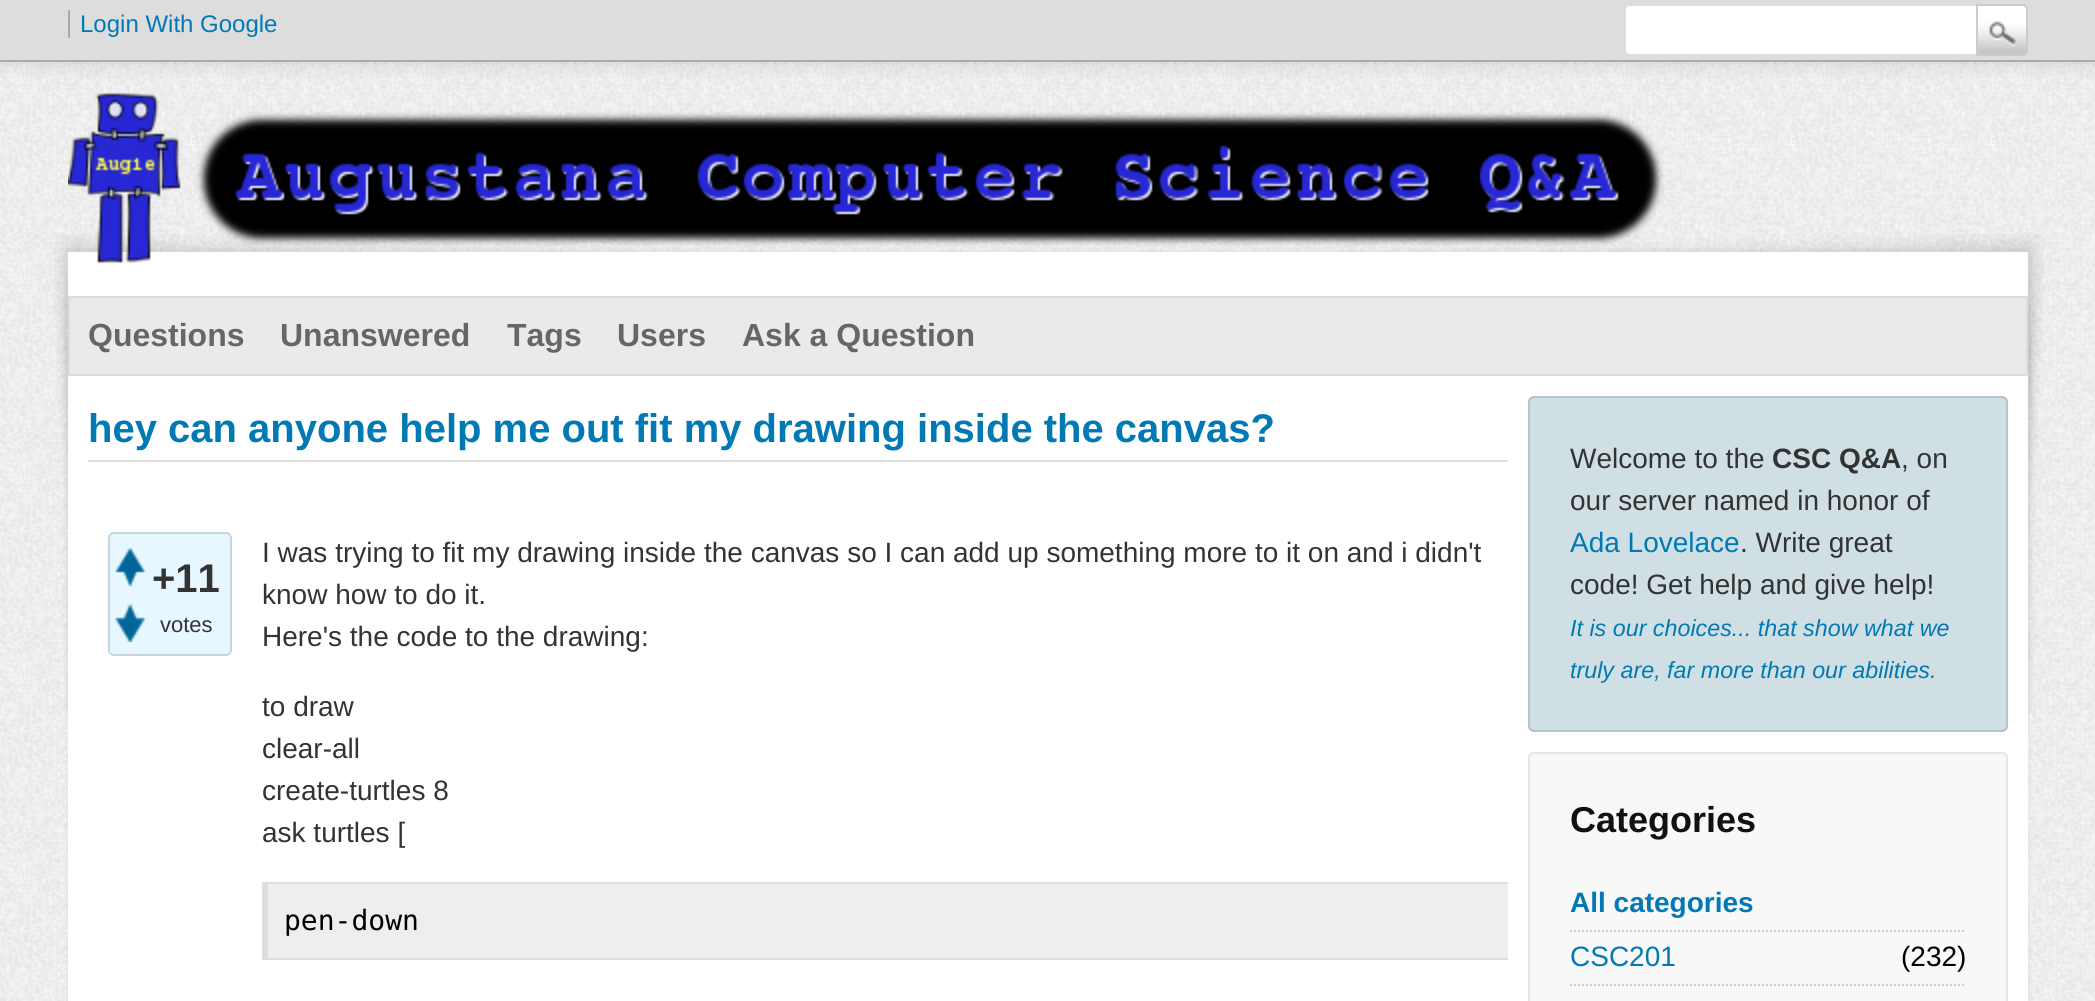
#include <cairo.h>
#include <math.h>
#include <stddef.h>

typedef struct { double x, y; const char *s; } line_t;
typedef struct { double x, y, w, h; unsigned color; } box_t;

static void ink(cairo_t *ctx, unsigned color) {
    cairo_set_source_rgb(ctx, (color >> 16) / 255.0, (color >> 8 & 255) / 255.0, (color & 255) / 255.0);
}

static void round_path(cairo_t *ctx, double x, double y, double w, double h, double r) {
    cairo_new_sub_path(ctx);
    cairo_arc(ctx, x + w - r, y + h - r, r, 0, M_PI / 2);
    cairo_arc(ctx, x + r, y + h - r, r, M_PI / 2, M_PI);
    cairo_arc(ctx, x + r, y + r, r, M_PI, 1.5 * M_PI);
    cairo_arc(ctx, x + w - r, y + r, r, 1.5 * M_PI, 2 * M_PI);
    cairo_close_path(ctx);
}

static void blur_box(cairo_t *ctx, double x, double y, double w, double h, double r, double blur, double alpha) {
    cairo_push_group_with_content(ctx, CAIRO_CONTENT_ALPHA);
    cairo_set_operator(ctx, CAIRO_OPERATOR_SOURCE);
    for (int i = 15; i >= -15 && fmin(w, h) + blur * i / 3 > 0; i -= 2) {
        double e = blur * i / 6;
        cairo_set_source_rgba(ctx, 0, 0, 0, alpha * erfc((i - 1) / 8.5) / 2);
        round_path(ctx, x - e, y - e, w + 2 * e, h + 2 * e, fmax(0, fmin(r + e + blur * .6, fmin(w, h) / 2 + e)));
        cairo_fill(ctx);
    }
    cairo_pattern_t *soft = cairo_pop_group(ctx);
    cairo_mask(ctx, soft);
    cairo_pattern_destroy(soft);
}

static void paste(cairo_t *ctx, const char *path, double x, double y, double w, double h) {
    cairo_surface_t *image = cairo_image_surface_create_from_png(path);
    cairo_save(ctx);
    cairo_set_source_surface(ctx, image, x, y);
    cairo_rectangle(ctx, x, y, w, h);
    cairo_fill(ctx);
    cairo_restore(ctx);
    cairo_surface_destroy(image);
}

int main(void) {
    cairo_surface_t *surface = cairo_image_surface_create(CAIRO_FORMAT_RGB24, 2095, 1001);
    cairo_t *ctx = cairo_create(surface);
    cairo_font_options_t *options = cairo_font_options_create();
    cairo_font_options_set_hint_metrics(options, CAIRO_HINT_METRICS_OFF);
    cairo_font_options_set_hint_style(options, CAIRO_HINT_STYLE_NONE);
    cairo_set_font_options(ctx, options);
    cairo_set_miter_limit(ctx, 4);
    ink(ctx, 0xFFFFFF);
    cairo_paint(ctx);
    paste(ctx, "media/1.png", 0, 62, 2095, 939);
    ink(ctx, 0x000000);
    blur_box(ctx, 0, 0, 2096, 62, 0, 10, 0.15);
    ink(ctx, 0xDDDDDD);
    cairo_rectangle(ctx, 0, 0, 2095, 60);
    cairo_fill(ctx);
    ink(ctx, 0xAAAAAA);
    cairo_rectangle(ctx, 0, 60, 2095, 2);
    cairo_fill(ctx);
    cairo_select_font_face(ctx, "Liberation Sans", CAIRO_FONT_SLANT_NORMAL, CAIRO_FONT_WEIGHT_NORMAL);
    cairo_set_font_size(ctx, 24);
    ink(ctx, 0x0179B5);
    cairo_move_to(ctx, 80, 32);
    cairo_show_text(ctx, "Login With Google");
    ink(ctx, 0xAAAAAA);
    cairo_rectangle(ctx, 68, 10, 2, 28);
    cairo_fill(ctx);
    ink(ctx, 0xFFFFFF);
    cairo_new_path(ctx);
    cairo_move_to(ctx, 1630, 5);
    cairo_line_to(ctx, 1977, 5);
    cairo_line_to(ctx, 1977, 55);
    cairo_line_to(ctx, 1630, 55);
    cairo_curve_to(ctx, 1627, 55, 1625, 53, 1625, 50);
    cairo_line_to(ctx, 1625, 10);
    cairo_curve_to(ctx, 1625, 7, 1627, 5, 1630, 5);
    cairo_close_path(ctx);
    cairo_fill_preserve(ctx);
    ink(ctx, 0xDDDDDD);
    cairo_stroke(ctx);
    paste(ctx, "media/2.png", 1978, 6, 50, 50);
    cairo_new_path(ctx);
    cairo_move_to(ctx, 1977, 5);
    cairo_line_to(ctx, 2022, 5);
    cairo_curve_to(ctx, 2025, 5, 2027, 7, 2027, 10);
    cairo_line_to(ctx, 2027, 50);
    cairo_curve_to(ctx, 2027, 53, 2025, 55, 2022, 55);
    cairo_line_to(ctx, 1977, 55);
    cairo_close_path(ctx);
    ink(ctx, 0xCCCCCC);
    cairo_stroke(ctx);
    paste(ctx, "media/4.png", 54, 234, 1990, 767);
    ink(ctx, 0x000000);
    blur_box(ctx, 68, 252, 1960, 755, 0, 2, 0.1);
    ink(ctx, 0xFFFFFF);
    cairo_rectangle(ctx, 68, 252, 1960, 749);
    cairo_fill(ctx);
    paste(ctx, "media/3.png", 68, 92, 1596, 172);
    ink(ctx, 0xEAEAEA);
    cairo_rectangle(ctx, 69, 297, 1958, 78);
    cairo_fill_preserve(ctx);
    ink(ctx, 0xDDDDDD);
    cairo_stroke(ctx);
    cairo_select_font_face(ctx, "Liberation Sans", CAIRO_FONT_SLANT_NORMAL, CAIRO_FONT_WEIGHT_BOLD);
    cairo_set_font_size(ctx, 32);
    ink(ctx, 0x666666);
    {
        static const line_t items[] = {
            {88, 346, "Questions"},
            {280, 346, "Unanswered"},
            {507, 346, "Tags"},
            {617, 346, "Users"},
            {742, 346, "Ask a Question"},
        };
        for (size_t i = 0; i < sizeof items / sizeof *items; i++) {
            cairo_move_to(ctx, items[i].x, items[i].y);
            cairo_show_text(ctx, items[i].s);
        }
    }
    ink(ctx, 0xDDDDDD);
    cairo_rectangle(ctx, 88, 460, 1420, 2);
    cairo_fill(ctx);
    cairo_set_font_size(ctx, 40);
    ink(ctx, 0x0179B5);
    cairo_move_to(ctx, 88, 442);
    cairo_show_text(ctx, "hey can anyone help me out fit my drawing inside the canvas?");
    ink(ctx, 0xE7F7FF);
    round_path(ctx, 109, 533, 122, 122, 5);
    cairo_fill_preserve(ctx);
    ink(ctx, 0xC5D6DF);
    cairo_stroke(ctx);
    paste(ctx, "media/5.png", 115, 547, 31, 39);
    paste(ctx, "media/6.png", 115, 603, 31, 39);
    ink(ctx, 0x333333);
    cairo_move_to(ctx, 152, 592);
    cairo_show_text(ctx, "+11");
    cairo_select_font_face(ctx, "Liberation Sans", CAIRO_FONT_SLANT_NORMAL, CAIRO_FONT_WEIGHT_NORMAL);
    cairo_set_font_size(ctx, 22);
    cairo_move_to(ctx, 160, 632);
    cairo_show_text(ctx, "votes");
    cairo_set_font_size(ctx, 28);
    {
        static const line_t items[] = {
            {262, 562, "I was trying to fit my drawing inside the canvas so I can add up something more to it on and i didn't"},
            {262, 604, "know how to do it."},
            {262, 646, "Here's the code to the drawing:"},
            {262, 716, "to draw"},
            {262, 758, "clear-all"},
            {262, 800, "create-turtles 8"},
            {262, 842, "ask turtles ["},
        };
        for (size_t i = 0; i < sizeof items / sizeof *items; i++) {
            cairo_move_to(ctx, items[i].x, items[i].y);
            cairo_show_text(ctx, items[i].s);
        }
    }
    {
        static const box_t items[] = {
            {268, 884, 1240, 74, 0xEEEEEE},
            {262, 882, 1246, 2, 0xDDDDDD},
            {262, 958, 1246, 2, 0xDDDDDD},
            {262, 882, 6, 78, 0xDDDDDD},
        };
        for (size_t i = 0; i < sizeof items / sizeof *items; i++) {
            ink(ctx, items[i].color);
            cairo_rectangle(ctx, items[i].x, items[i].y, items[i].w, items[i].h);
            cairo_fill(ctx);
        }
    }
    cairo_select_font_face(ctx, "DejaVu Sans Mono", CAIRO_FONT_SLANT_NORMAL, CAIRO_FONT_WEIGHT_NORMAL);
    ink(ctx, 0x000000);
    cairo_move_to(ctx, 284, 930);
    cairo_show_text(ctx, "pen-down");
    ink(ctx, 0xD0DFE4);
    round_path(ctx, 1529, 397, 478, 334, 5);
    cairo_fill_preserve(ctx);
    ink(ctx, 0xB6C4C8);
    cairo_stroke(ctx);
    cairo_select_font_face(ctx, "Liberation Sans", CAIRO_FONT_SLANT_NORMAL, CAIRO_FONT_WEIGHT_NORMAL);
    ink(ctx, 0x333333);
    cairo_move_to(ctx, 1570, 468);
    cairo_show_text(ctx, "Welcome to the");
    cairo_select_font_face(ctx, "Liberation Sans", CAIRO_FONT_SLANT_NORMAL, CAIRO_FONT_WEIGHT_BOLD);
    cairo_move_to(ctx, 1772, 468);
    cairo_show_text(ctx, "CSC Q&A");
    cairo_select_font_face(ctx, "Liberation Sans", CAIRO_FONT_SLANT_NORMAL, CAIRO_FONT_WEIGHT_NORMAL);
    cairo_move_to(ctx, 1901, 468);
    cairo_show_text(ctx, ", on");
    cairo_move_to(ctx, 1570, 510);
    cairo_show_text(ctx, "our server named in honor of");
    ink(ctx, 0x0179B5);
    cairo_move_to(ctx, 1570, 552);
    cairo_show_text(ctx, "Ada Lovelace");
    ink(ctx, 0x333333);
    cairo_move_to(ctx, 1740, 552);
    cairo_show_text(ctx, ". Write great");
    cairo_move_to(ctx, 1570, 594);
    cairo_show_text(ctx, "code! Get help and give help!");
    cairo_select_font_face(ctx, "Liberation Sans", CAIRO_FONT_SLANT_ITALIC, CAIRO_FONT_WEIGHT_NORMAL);
    cairo_set_font_size(ctx, 23.3);
    ink(ctx, 0x0179B5);
    cairo_move_to(ctx, 1570, 636);
    cairo_show_text(ctx, "It is our choices... that show what we");
    cairo_move_to(ctx, 1570, 678);
    cairo_show_text(ctx, "truly are, far more than our abilities.");
    ink(ctx, 0xF8F8F8);
    round_path(ctx, 1529, 753, 478, 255, 5);
    cairo_fill_preserve(ctx);
    ink(ctx, 0xE5E5E5);
    cairo_stroke(ctx);
    cairo_select_font_face(ctx, "Liberation Sans", CAIRO_FONT_SLANT_NORMAL, CAIRO_FONT_WEIGHT_BOLD);
    cairo_set_font_size(ctx, 36);
    ink(ctx, 0x111111);
    cairo_move_to(ctx, 1570, 832);
    cairo_show_text(ctx, "Categories");
    cairo_new_path(ctx);
    cairo_move_to(ctx, 1570, 931);
    cairo_line_to(ctx, 1966, 931);
    ink(ctx, 0xCCCCCC);
    cairo_set_dash(ctx, (double[]){2, 2}, 2, 0);
    cairo_stroke(ctx);
    cairo_set_font_size(ctx, 28);
    ink(ctx, 0x0179B5);
    cairo_move_to(ctx, 1570, 912);
    cairo_show_text(ctx, "All categories");
    cairo_new_path(ctx);
    cairo_move_to(ctx, 1570, 985);
    cairo_line_to(ctx, 1966, 985);
    ink(ctx, 0xCCCCCC);
    cairo_stroke(ctx);
    cairo_select_font_face(ctx, "Liberation Sans", CAIRO_FONT_SLANT_NORMAL, CAIRO_FONT_WEIGHT_NORMAL);
    ink(ctx, 0x0179B5);
    cairo_move_to(ctx, 1570, 966);
    cairo_show_text(ctx, "CSC201");
    ink(ctx, 0x000000);
    cairo_move_to(ctx, 1901, 966);
    cairo_show_text(ctx, "(232)");
    cairo_surface_write_to_png(surface, "image.png");
    cairo_font_options_destroy(options);
    cairo_destroy(ctx);
    cairo_surface_destroy(surface);
    return 0;
}
